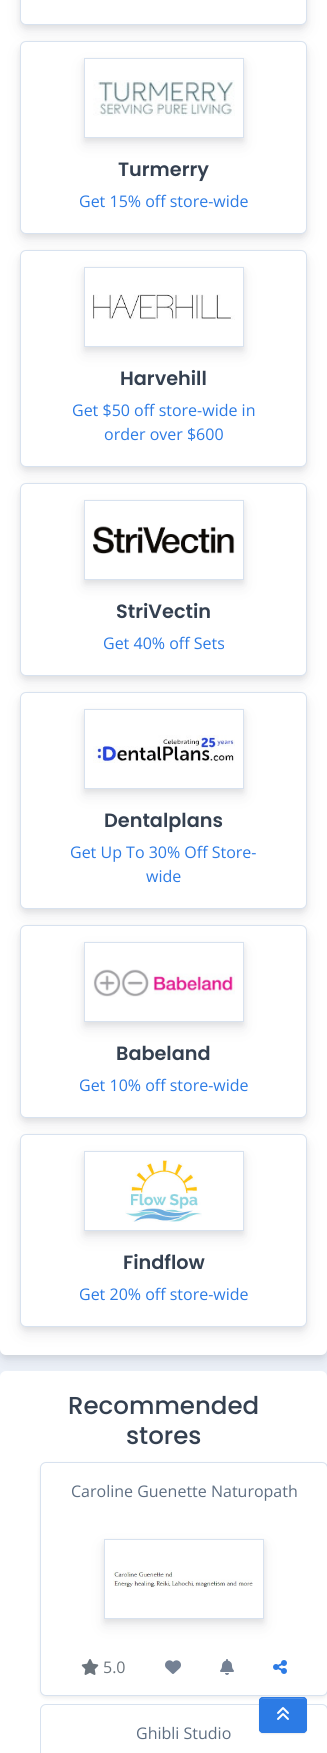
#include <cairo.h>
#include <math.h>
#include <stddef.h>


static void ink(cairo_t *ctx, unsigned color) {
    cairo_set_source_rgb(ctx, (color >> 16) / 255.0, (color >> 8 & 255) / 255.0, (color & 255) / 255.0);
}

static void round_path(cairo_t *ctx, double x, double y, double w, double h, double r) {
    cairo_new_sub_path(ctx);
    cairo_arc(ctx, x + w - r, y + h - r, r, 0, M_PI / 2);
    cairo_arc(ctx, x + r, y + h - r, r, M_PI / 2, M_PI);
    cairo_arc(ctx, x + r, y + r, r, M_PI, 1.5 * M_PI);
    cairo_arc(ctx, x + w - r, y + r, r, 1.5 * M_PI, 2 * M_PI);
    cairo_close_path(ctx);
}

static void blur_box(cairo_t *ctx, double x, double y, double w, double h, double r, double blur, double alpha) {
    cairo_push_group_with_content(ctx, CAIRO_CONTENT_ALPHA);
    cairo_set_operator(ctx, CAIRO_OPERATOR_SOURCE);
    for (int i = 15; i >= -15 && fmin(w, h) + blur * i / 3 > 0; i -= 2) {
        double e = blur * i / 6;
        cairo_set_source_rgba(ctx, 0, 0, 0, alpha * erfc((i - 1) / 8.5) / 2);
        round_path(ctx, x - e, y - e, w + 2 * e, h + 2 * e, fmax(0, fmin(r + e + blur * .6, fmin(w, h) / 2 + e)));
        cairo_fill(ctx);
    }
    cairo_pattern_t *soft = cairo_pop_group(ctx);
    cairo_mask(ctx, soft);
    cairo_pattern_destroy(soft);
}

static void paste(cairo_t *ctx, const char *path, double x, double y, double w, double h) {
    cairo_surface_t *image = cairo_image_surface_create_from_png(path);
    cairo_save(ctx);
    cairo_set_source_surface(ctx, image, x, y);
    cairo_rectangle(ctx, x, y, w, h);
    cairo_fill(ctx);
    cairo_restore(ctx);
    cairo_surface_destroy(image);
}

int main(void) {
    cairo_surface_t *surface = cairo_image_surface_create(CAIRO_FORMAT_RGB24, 327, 1753);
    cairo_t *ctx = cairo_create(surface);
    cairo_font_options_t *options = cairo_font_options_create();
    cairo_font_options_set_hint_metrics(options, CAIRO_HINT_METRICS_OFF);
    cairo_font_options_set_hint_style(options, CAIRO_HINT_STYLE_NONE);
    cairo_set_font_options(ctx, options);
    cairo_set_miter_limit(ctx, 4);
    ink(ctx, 0xEDF2F9);
    cairo_paint(ctx);
    ink(ctx, 0x000000);
    blur_box(ctx, 0, -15, 327, 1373, 6, 3, 0.07);
    ink(ctx, 0x414558);
    blur_box(ctx, 0, -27, 327, 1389, 6, 7, 0.1);
    ink(ctx, 0xFFFFFF);
    round_path(ctx, 0, -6, 327, 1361, 6);
    cairo_fill(ctx);
    ink(ctx, 0x000000);
    blur_box(ctx, 20, -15, 287, 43, 6, 3, 0.07);
    ink(ctx, 0x414558);
    blur_box(ctx, 20, -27, 287, 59, 6, 7, 0.1);
    ink(ctx, 0xFFFFFF);
    round_path(ctx, 20.5, -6.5, 286, 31, 5.5);
    cairo_fill_preserve(ctx);
    ink(ctx, 0xD8E2EF);
    cairo_set_line_width(ctx, 1);
    cairo_stroke(ctx);
    ink(ctx, 0x000000);
    blur_box(ctx, 20, 44, 287, 193, 6, 3, 0.07);
    ink(ctx, 0x414558);
    blur_box(ctx, 20, 48, 287, 193, 6, 7, 0.1);
    ink(ctx, 0xFFFFFF);
    round_path(ctx, 20.5, 41.5, 286, 192, 5.5);
    cairo_fill_preserve(ctx);
    ink(ctx, 0xD8E2EF);
    cairo_stroke(ctx);
    cairo_save(ctx);
    cairo_set_fill_rule(ctx, CAIRO_FILL_RULE_EVEN_ODD);
    cairo_new_path(ctx);
    cairo_move_to(ctx, 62, 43);
    cairo_line_to(ctx, 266, 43);
    cairo_line_to(ctx, 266, 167);
    cairo_line_to(ctx, 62, 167);
    cairo_close_path(ctx);
    cairo_move_to(ctx, 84, 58);
    cairo_line_to(ctx, 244, 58);
    cairo_line_to(ctx, 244, 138);
    cairo_line_to(ctx, 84, 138);
    cairo_close_path(ctx);
    cairo_clip(ctx);
    ink(ctx, 0x414558);
    blur_box(ctx, 84, 65, 160, 80, 0, 7, 0.1);
    cairo_restore(ctx);
    cairo_save(ctx);
    cairo_set_fill_rule(ctx, CAIRO_FILL_RULE_EVEN_ODD);
    cairo_new_path(ctx);
    cairo_move_to(ctx, 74, 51);
    cairo_line_to(ctx, 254, 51);
    cairo_line_to(ctx, 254, 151);
    cairo_line_to(ctx, 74, 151);
    cairo_close_path(ctx);
    cairo_move_to(ctx, 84, 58);
    cairo_line_to(ctx, 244, 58);
    cairo_line_to(ctx, 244, 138);
    cairo_line_to(ctx, 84, 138);
    cairo_close_path(ctx);
    cairo_clip(ctx);
    ink(ctx, 0x000000);
    blur_box(ctx, 84, 61, 160, 80, 0, 3, 0.07);
    cairo_restore(ctx);
    cairo_rectangle(ctx, 84.5, 58.5, 159, 79);
    cairo_stroke(ctx);
    paste(ctx, "media/1.png", 93, 80, 142, 36);
    cairo_select_font_face(ctx, "Poppins SemiBold", CAIRO_FONT_SLANT_NORMAL, CAIRO_FONT_WEIGHT_NORMAL);
    cairo_set_font_size(ctx, 19.25);
    ink(ctx, 0x344050);
    cairo_move_to(ctx, 118, 176);
    cairo_show_text(ctx, "Turmerry");
    cairo_select_font_face(ctx, "Open Sans", CAIRO_FONT_SLANT_NORMAL, CAIRO_FONT_WEIGHT_NORMAL);
    cairo_set_font_size(ctx, 16);
    ink(ctx, 0x2C7BE5);
    cairo_move_to(ctx, 79, 207);
    cairo_show_text(ctx, "Get 15% off store-wide");
    ink(ctx, 0x000000);
    blur_box(ctx, 20, 253, 287, 217, 6, 3, 0.07);
    ink(ctx, 0x414558);
    blur_box(ctx, 20, 257, 287, 217, 6, 7, 0.1);
    ink(ctx, 0xFFFFFF);
    round_path(ctx, 20.5, 250.5, 286, 216, 5.5);
    cairo_fill_preserve(ctx);
    ink(ctx, 0xD8E2EF);
    cairo_stroke(ctx);
    cairo_save(ctx);
    cairo_set_fill_rule(ctx, CAIRO_FILL_RULE_EVEN_ODD);
    cairo_new_path(ctx);
    cairo_move_to(ctx, 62, 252);
    cairo_line_to(ctx, 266, 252);
    cairo_line_to(ctx, 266, 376);
    cairo_line_to(ctx, 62, 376);
    cairo_close_path(ctx);
    cairo_move_to(ctx, 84, 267);
    cairo_line_to(ctx, 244, 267);
    cairo_line_to(ctx, 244, 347);
    cairo_line_to(ctx, 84, 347);
    cairo_close_path(ctx);
    cairo_clip(ctx);
    ink(ctx, 0x414558);
    blur_box(ctx, 84, 274, 160, 80, 0, 7, 0.1);
    cairo_restore(ctx);
    cairo_save(ctx);
    cairo_set_fill_rule(ctx, CAIRO_FILL_RULE_EVEN_ODD);
    cairo_new_path(ctx);
    cairo_move_to(ctx, 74, 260);
    cairo_line_to(ctx, 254, 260);
    cairo_line_to(ctx, 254, 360);
    cairo_line_to(ctx, 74, 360);
    cairo_close_path(ctx);
    cairo_move_to(ctx, 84, 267);
    cairo_line_to(ctx, 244, 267);
    cairo_line_to(ctx, 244, 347);
    cairo_line_to(ctx, 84, 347);
    cairo_close_path(ctx);
    cairo_clip(ctx);
    ink(ctx, 0x000000);
    blur_box(ctx, 84, 270, 160, 80, 0, 3, 0.07);
    cairo_restore(ctx);
    cairo_rectangle(ctx, 84.5, 267.5, 159, 79);
    cairo_stroke(ctx);
    paste(ctx, "media/2.png", 93, 294, 142, 26);
    cairo_select_font_face(ctx, "Poppins SemiBold", CAIRO_FONT_SLANT_NORMAL, CAIRO_FONT_WEIGHT_NORMAL);
    cairo_set_font_size(ctx, 19.25);
    ink(ctx, 0x344050);
    cairo_move_to(ctx, 120, 385);
    cairo_show_text(ctx, "Harvehill");
    cairo_select_font_face(ctx, "Open Sans", CAIRO_FONT_SLANT_NORMAL, CAIRO_FONT_WEIGHT_NORMAL);
    cairo_set_font_size(ctx, 16);
    ink(ctx, 0x2C7BE5);
    cairo_move_to(ctx, 72, 416);
    cairo_show_text(ctx, "Get $50 off store-wide in");
    cairo_move_to(ctx, 104, 440);
    cairo_show_text(ctx, "order over $600");
    ink(ctx, 0x000000);
    blur_box(ctx, 20, 486, 287, 193, 6, 3, 0.07);
    ink(ctx, 0x414558);
    blur_box(ctx, 20, 490, 287, 193, 6, 7, 0.1);
    ink(ctx, 0xFFFFFF);
    round_path(ctx, 20.5, 483.5, 286, 192, 5.5);
    cairo_fill_preserve(ctx);
    ink(ctx, 0xD8E2EF);
    cairo_stroke(ctx);
    cairo_save(ctx);
    cairo_set_fill_rule(ctx, CAIRO_FILL_RULE_EVEN_ODD);
    cairo_new_path(ctx);
    cairo_move_to(ctx, 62, 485);
    cairo_line_to(ctx, 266, 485);
    cairo_line_to(ctx, 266, 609);
    cairo_line_to(ctx, 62, 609);
    cairo_close_path(ctx);
    cairo_move_to(ctx, 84, 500);
    cairo_line_to(ctx, 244, 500);
    cairo_line_to(ctx, 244, 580);
    cairo_line_to(ctx, 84, 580);
    cairo_close_path(ctx);
    cairo_clip(ctx);
    ink(ctx, 0x414558);
    blur_box(ctx, 84, 507, 160, 80, 0, 7, 0.1);
    cairo_restore(ctx);
    cairo_save(ctx);
    cairo_set_fill_rule(ctx, CAIRO_FILL_RULE_EVEN_ODD);
    cairo_new_path(ctx);
    cairo_move_to(ctx, 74, 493);
    cairo_line_to(ctx, 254, 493);
    cairo_line_to(ctx, 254, 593);
    cairo_line_to(ctx, 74, 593);
    cairo_close_path(ctx);
    cairo_move_to(ctx, 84, 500);
    cairo_line_to(ctx, 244, 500);
    cairo_line_to(ctx, 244, 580);
    cairo_line_to(ctx, 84, 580);
    cairo_close_path(ctx);
    cairo_clip(ctx);
    ink(ctx, 0x000000);
    blur_box(ctx, 84, 503, 160, 80, 0, 3, 0.07);
    cairo_restore(ctx);
    cairo_rectangle(ctx, 84.5, 500.5, 159, 79);
    cairo_stroke(ctx);
    paste(ctx, "media/3.png", 93, 526, 142, 28);
    cairo_select_font_face(ctx, "Poppins SemiBold", CAIRO_FONT_SLANT_NORMAL, CAIRO_FONT_WEIGHT_NORMAL);
    cairo_set_font_size(ctx, 19.25);
    ink(ctx, 0x344050);
    cairo_move_to(ctx, 116, 618);
    cairo_show_text(ctx, "StriVectin");
    cairo_select_font_face(ctx, "Open Sans", CAIRO_FONT_SLANT_NORMAL, CAIRO_FONT_WEIGHT_NORMAL);
    cairo_set_font_size(ctx, 16);
    ink(ctx, 0x2C7BE5);
    cairo_move_to(ctx, 103, 649);
    cairo_show_text(ctx, "Get 40% off Sets");
    ink(ctx, 0x000000);
    blur_box(ctx, 20, 695, 287, 217, 6, 3, 0.07);
    ink(ctx, 0x414558);
    blur_box(ctx, 20, 699, 287, 217, 6, 7, 0.1);
    ink(ctx, 0xFFFFFF);
    round_path(ctx, 20.5, 692.5, 286, 216, 5.5);
    cairo_fill_preserve(ctx);
    ink(ctx, 0xD8E2EF);
    cairo_stroke(ctx);
    cairo_save(ctx);
    cairo_set_fill_rule(ctx, CAIRO_FILL_RULE_EVEN_ODD);
    cairo_new_path(ctx);
    cairo_move_to(ctx, 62, 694);
    cairo_line_to(ctx, 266, 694);
    cairo_line_to(ctx, 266, 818);
    cairo_line_to(ctx, 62, 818);
    cairo_close_path(ctx);
    cairo_move_to(ctx, 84, 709);
    cairo_line_to(ctx, 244, 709);
    cairo_line_to(ctx, 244, 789);
    cairo_line_to(ctx, 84, 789);
    cairo_close_path(ctx);
    cairo_clip(ctx);
    ink(ctx, 0x414558);
    blur_box(ctx, 84, 716, 160, 80, 0, 7, 0.1);
    cairo_restore(ctx);
    cairo_save(ctx);
    cairo_set_fill_rule(ctx, CAIRO_FILL_RULE_EVEN_ODD);
    cairo_new_path(ctx);
    cairo_move_to(ctx, 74, 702);
    cairo_line_to(ctx, 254, 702);
    cairo_line_to(ctx, 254, 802);
    cairo_line_to(ctx, 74, 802);
    cairo_close_path(ctx);
    cairo_move_to(ctx, 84, 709);
    cairo_line_to(ctx, 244, 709);
    cairo_line_to(ctx, 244, 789);
    cairo_line_to(ctx, 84, 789);
    cairo_close_path(ctx);
    cairo_clip(ctx);
    ink(ctx, 0x000000);
    blur_box(ctx, 84, 712, 160, 80, 0, 3, 0.07);
    cairo_restore(ctx);
    cairo_rectangle(ctx, 84.5, 709.5, 159, 79);
    cairo_stroke(ctx);
    paste(ctx, "media/4.png", 93, 735, 142, 28);
    cairo_select_font_face(ctx, "Poppins SemiBold", CAIRO_FONT_SLANT_NORMAL, CAIRO_FONT_WEIGHT_NORMAL);
    cairo_set_font_size(ctx, 19.25);
    ink(ctx, 0x344050);
    cairo_move_to(ctx, 104, 827);
    cairo_show_text(ctx, "Dentalplans");
    cairo_select_font_face(ctx, "Open Sans", CAIRO_FONT_SLANT_NORMAL, CAIRO_FONT_WEIGHT_NORMAL);
    cairo_set_font_size(ctx, 16);
    ink(ctx, 0x2C7BE5);
    cairo_move_to(ctx, 70, 858);
    cairo_show_text(ctx, "Get Up To 30% Off Store-");
    cairo_move_to(ctx, 146, 882);
    cairo_show_text(ctx, "wide");
    ink(ctx, 0x000000);
    blur_box(ctx, 20, 928, 287, 193, 6, 3, 0.07);
    ink(ctx, 0x414558);
    blur_box(ctx, 20, 932, 287, 193, 6, 7, 0.1);
    ink(ctx, 0xFFFFFF);
    round_path(ctx, 20.5, 925.5, 286, 192, 5.5);
    cairo_fill_preserve(ctx);
    ink(ctx, 0xD8E2EF);
    cairo_stroke(ctx);
    cairo_save(ctx);
    cairo_set_fill_rule(ctx, CAIRO_FILL_RULE_EVEN_ODD);
    cairo_new_path(ctx);
    cairo_move_to(ctx, 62, 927);
    cairo_line_to(ctx, 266, 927);
    cairo_line_to(ctx, 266, 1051);
    cairo_line_to(ctx, 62, 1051);
    cairo_close_path(ctx);
    cairo_move_to(ctx, 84, 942);
    cairo_line_to(ctx, 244, 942);
    cairo_line_to(ctx, 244, 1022);
    cairo_line_to(ctx, 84, 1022);
    cairo_close_path(ctx);
    cairo_clip(ctx);
    ink(ctx, 0x414558);
    blur_box(ctx, 84, 949, 160, 80, 0, 7, 0.1);
    cairo_restore(ctx);
    cairo_save(ctx);
    cairo_set_fill_rule(ctx, CAIRO_FILL_RULE_EVEN_ODD);
    cairo_new_path(ctx);
    cairo_move_to(ctx, 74, 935);
    cairo_line_to(ctx, 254, 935);
    cairo_line_to(ctx, 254, 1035);
    cairo_line_to(ctx, 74, 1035);
    cairo_close_path(ctx);
    cairo_move_to(ctx, 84, 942);
    cairo_line_to(ctx, 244, 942);
    cairo_line_to(ctx, 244, 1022);
    cairo_line_to(ctx, 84, 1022);
    cairo_close_path(ctx);
    cairo_clip(ctx);
    ink(ctx, 0x000000);
    blur_box(ctx, 84, 945, 160, 80, 0, 3, 0.07);
    cairo_restore(ctx);
    cairo_rectangle(ctx, 84.5, 942.5, 159, 79);
    cairo_stroke(ctx);
    paste(ctx, "media/5.png", 93, 969, 142, 28);
    cairo_select_font_face(ctx, "Poppins SemiBold", CAIRO_FONT_SLANT_NORMAL, CAIRO_FONT_WEIGHT_NORMAL);
    cairo_set_font_size(ctx, 19.25);
    ink(ctx, 0x344050);
    cairo_move_to(ctx, 116, 1060);
    cairo_show_text(ctx, "Babeland");
    cairo_select_font_face(ctx, "Open Sans", CAIRO_FONT_SLANT_NORMAL, CAIRO_FONT_WEIGHT_NORMAL);
    cairo_set_font_size(ctx, 16);
    ink(ctx, 0x2C7BE5);
    cairo_move_to(ctx, 79, 1091);
    cairo_show_text(ctx, "Get 10% off store-wide");
    ink(ctx, 0x000000);
    blur_box(ctx, 20, 1137, 287, 193, 6, 3, 0.07);
    ink(ctx, 0x414558);
    blur_box(ctx, 20, 1141, 287, 193, 6, 7, 0.1);
    ink(ctx, 0xFFFFFF);
    round_path(ctx, 20.5, 1134.5, 286, 192, 5.5);
    cairo_fill_preserve(ctx);
    ink(ctx, 0xD8E2EF);
    cairo_stroke(ctx);
    cairo_save(ctx);
    cairo_set_fill_rule(ctx, CAIRO_FILL_RULE_EVEN_ODD);
    cairo_new_path(ctx);
    cairo_move_to(ctx, 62, 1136);
    cairo_line_to(ctx, 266, 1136);
    cairo_line_to(ctx, 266, 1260);
    cairo_line_to(ctx, 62, 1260);
    cairo_close_path(ctx);
    cairo_move_to(ctx, 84, 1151);
    cairo_line_to(ctx, 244, 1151);
    cairo_line_to(ctx, 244, 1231);
    cairo_line_to(ctx, 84, 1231);
    cairo_close_path(ctx);
    cairo_clip(ctx);
    ink(ctx, 0x414558);
    blur_box(ctx, 84, 1158, 160, 80, 0, 7, 0.1);
    cairo_restore(ctx);
    cairo_save(ctx);
    cairo_set_fill_rule(ctx, CAIRO_FILL_RULE_EVEN_ODD);
    cairo_new_path(ctx);
    cairo_move_to(ctx, 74, 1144);
    cairo_line_to(ctx, 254, 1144);
    cairo_line_to(ctx, 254, 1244);
    cairo_line_to(ctx, 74, 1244);
    cairo_close_path(ctx);
    cairo_move_to(ctx, 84, 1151);
    cairo_line_to(ctx, 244, 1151);
    cairo_line_to(ctx, 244, 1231);
    cairo_line_to(ctx, 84, 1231);
    cairo_close_path(ctx);
    cairo_clip(ctx);
    ink(ctx, 0x000000);
    blur_box(ctx, 84, 1154, 160, 80, 0, 3, 0.07);
    cairo_restore(ctx);
    cairo_rectangle(ctx, 84.5, 1151.5, 159, 79);
    cairo_stroke(ctx);
    paste(ctx, "media/6.png", 125, 1160, 77, 62);
    cairo_select_font_face(ctx, "Poppins SemiBold", CAIRO_FONT_SLANT_NORMAL, CAIRO_FONT_WEIGHT_NORMAL);
    cairo_set_font_size(ctx, 19.25);
    ink(ctx, 0x344050);
    cairo_move_to(ctx, 123, 1269);
    cairo_show_text(ctx, "Findflow");
    cairo_select_font_face(ctx, "Open Sans", CAIRO_FONT_SLANT_NORMAL, CAIRO_FONT_WEIGHT_NORMAL);
    cairo_set_font_size(ctx, 16);
    ink(ctx, 0x2C7BE5);
    cairo_move_to(ctx, 79, 1300);
    cairo_show_text(ctx, "Get 20% off store-wide");
    ink(ctx, 0xFFFFFF);
    round_path(ctx, 0, 1371, 327, 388, 6);
    cairo_fill(ctx);
    cairo_select_font_face(ctx, "Poppins Medium", CAIRO_FONT_SLANT_NORMAL, CAIRO_FONT_WEIGHT_NORMAL);
    cairo_set_font_size(ctx, 24.5);
    ink(ctx, 0x344050);
    cairo_move_to(ctx, 68, 1414);
    cairo_show_text(ctx, "Recommended");
    cairo_move_to(ctx, 126, 1444);
    cairo_show_text(ctx, "stores");
    ink(ctx, 0x000000);
    blur_box(ctx, 40, 1464, 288, 234, 6, 2, 0.07);
    ink(ctx, 0xFFFFFF);
    round_path(ctx, 40.5, 1462.5, 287, 233, 5.5);
    cairo_fill_preserve(ctx);
    ink(ctx, 0xD8E2EF);
    cairo_stroke(ctx);
    cairo_select_font_face(ctx, "Open Sans", CAIRO_FONT_SLANT_NORMAL, CAIRO_FONT_WEIGHT_NORMAL);
    cairo_set_font_size(ctx, 16);
    ink(ctx, 0x5E6E82);
    cairo_move_to(ctx, 71, 1497);
    cairo_show_text(ctx, "Caroline Guenette Naturopath");
    cairo_save(ctx);
    cairo_set_fill_rule(ctx, CAIRO_FILL_RULE_EVEN_ODD);
    cairo_new_path(ctx);
    cairo_move_to(ctx, 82, 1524);
    cairo_line_to(ctx, 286, 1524);
    cairo_line_to(ctx, 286, 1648);
    cairo_line_to(ctx, 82, 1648);
    cairo_close_path(ctx);
    cairo_move_to(ctx, 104, 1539);
    cairo_line_to(ctx, 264, 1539);
    cairo_line_to(ctx, 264, 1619);
    cairo_line_to(ctx, 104, 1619);
    cairo_close_path(ctx);
    cairo_clip(ctx);
    ink(ctx, 0x414558);
    blur_box(ctx, 104, 1546, 160, 80, 0, 7, 0.1);
    cairo_restore(ctx);
    cairo_save(ctx);
    cairo_set_fill_rule(ctx, CAIRO_FILL_RULE_EVEN_ODD);
    cairo_new_path(ctx);
    cairo_move_to(ctx, 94, 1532);
    cairo_line_to(ctx, 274, 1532);
    cairo_line_to(ctx, 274, 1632);
    cairo_line_to(ctx, 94, 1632);
    cairo_close_path(ctx);
    cairo_move_to(ctx, 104, 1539);
    cairo_line_to(ctx, 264, 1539);
    cairo_line_to(ctx, 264, 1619);
    cairo_line_to(ctx, 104, 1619);
    cairo_close_path(ctx);
    cairo_clip(ctx);
    ink(ctx, 0x000000);
    blur_box(ctx, 104, 1542, 160, 80, 0, 3, 0.07);
    cairo_restore(ctx);
    cairo_rectangle(ctx, 104.5, 1539.5, 159, 79);
    ink(ctx, 0xD8E2EF);
    cairo_stroke(ctx);
    paste(ctx, "media/7.png", 113, 1570, 140, 18);
    paste(ctx, "media/8.png", 81, 1659, 18, 16);
    ink(ctx, 0x6C757D);
    cairo_move_to(ctx, 103, 1673);
    cairo_show_text(ctx, "5.0");
    paste(ctx, "media/9.png", 165, 1660, 16, 14);
    paste(ctx, "media/10.png", 220, 1659, 14, 16);
    paste(ctx, "media/11.png", 273, 1660, 14, 14);
    round_path(ctx, 40.5, 1704.5, 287, 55, 5.5);
    ink(ctx, 0xD8E2EF);
    cairo_stroke(ctx);
    ink(ctx, 0x5E6E82);
    cairo_move_to(ctx, 136, 1739);
    cairo_show_text(ctx, "Ghibli Studio");
    ink(ctx, 0x000000);
    blur_box(ctx, 259, 1698, 48, 36, 4, 0.5, 0.07);
    ink(ctx, 0x2C7BE5);
    round_path(ctx, 259, 1697, 48, 36, 4);
    cairo_fill(ctx);
    ink(ctx, 0x4C8FE9);
    cairo_new_path(ctx);
    cairo_move_to(ctx, 263, 1699);
    cairo_line_to(ctx, 303, 1699);
    cairo_curve_to(ctx, 305, 1699, 306, 1700, 306, 1702);
    cairo_curve_to(ctx, 306, 1697, 301, 1698, 296, 1698);
    cairo_line_to(ctx, 270, 1698);
    cairo_curve_to(ctx, 265, 1698, 260, 1697, 260, 1702);
    cairo_curve_to(ctx, 260, 1700, 261, 1699, 263, 1699);
    cairo_close_path(ctx);
    cairo_fill(ctx);
    round_path(ctx, 259.5, 1697.5, 47, 35, 3.5);
    ink(ctx, 0x2C7BE5);
    cairo_stroke(ctx);
    paste(ctx, "media/12.png", 277, 1707, 12, 13);
    cairo_surface_write_to_png(surface, "image.png");
    cairo_font_options_destroy(options);
    cairo_destroy(ctx);
    cairo_surface_destroy(surface);
    return 0;
}
